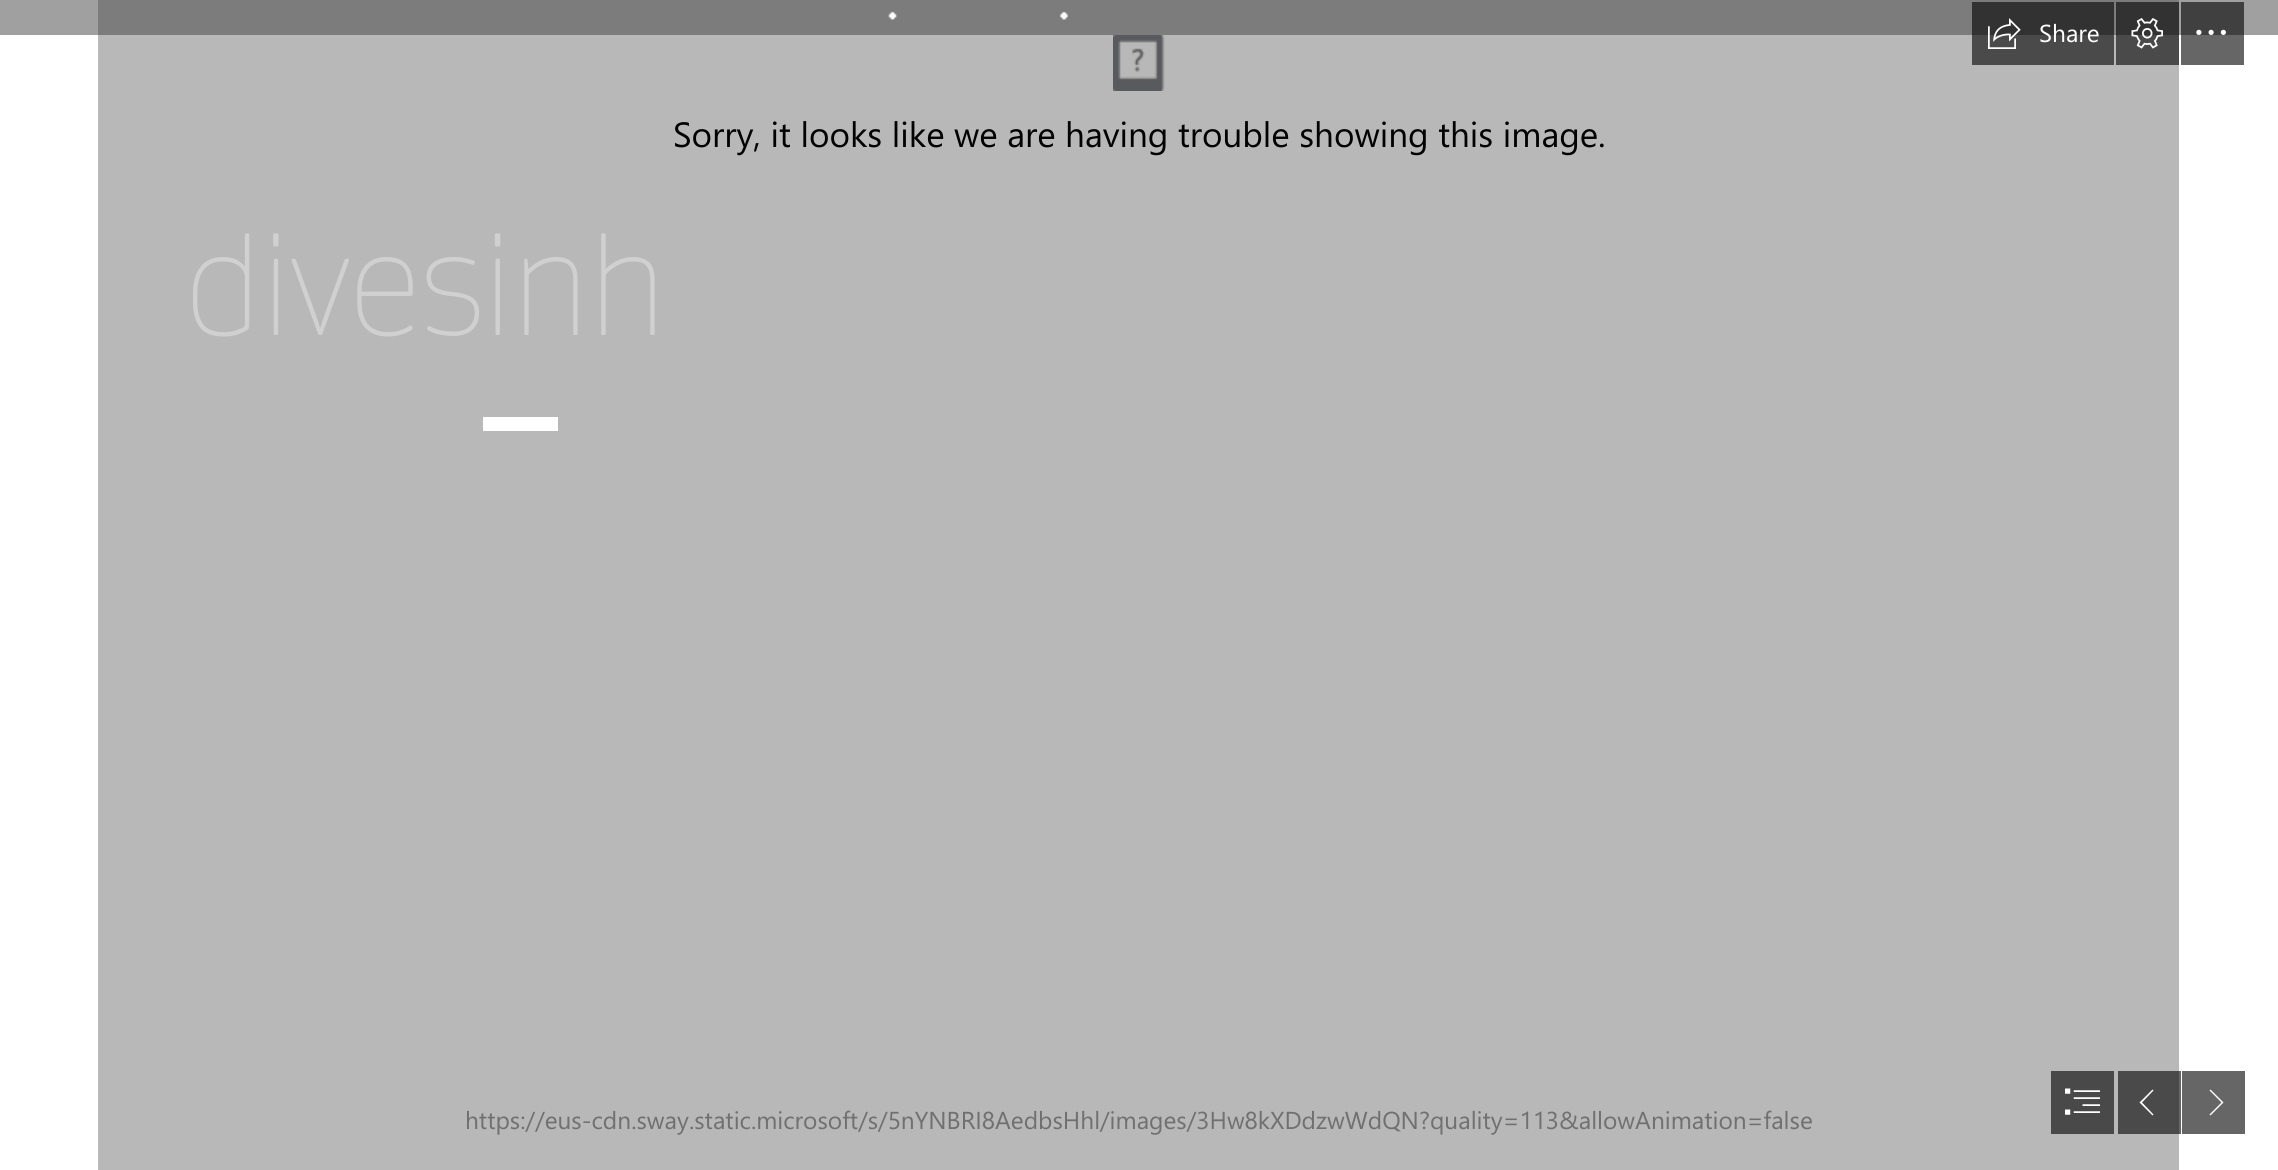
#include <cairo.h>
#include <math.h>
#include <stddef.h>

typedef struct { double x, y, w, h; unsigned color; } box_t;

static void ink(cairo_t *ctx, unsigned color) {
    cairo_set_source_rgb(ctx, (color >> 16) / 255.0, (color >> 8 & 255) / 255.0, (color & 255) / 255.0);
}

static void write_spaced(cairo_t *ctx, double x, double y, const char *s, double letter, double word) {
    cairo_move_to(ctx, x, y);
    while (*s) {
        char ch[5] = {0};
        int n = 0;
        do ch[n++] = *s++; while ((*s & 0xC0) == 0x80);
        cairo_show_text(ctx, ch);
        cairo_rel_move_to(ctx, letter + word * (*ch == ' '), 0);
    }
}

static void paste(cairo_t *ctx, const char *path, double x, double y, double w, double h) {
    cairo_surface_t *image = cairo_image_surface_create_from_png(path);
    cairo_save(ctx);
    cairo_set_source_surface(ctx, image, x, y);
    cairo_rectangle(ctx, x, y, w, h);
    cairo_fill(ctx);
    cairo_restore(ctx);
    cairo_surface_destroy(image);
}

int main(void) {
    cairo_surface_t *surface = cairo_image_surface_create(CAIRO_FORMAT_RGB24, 2278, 1170);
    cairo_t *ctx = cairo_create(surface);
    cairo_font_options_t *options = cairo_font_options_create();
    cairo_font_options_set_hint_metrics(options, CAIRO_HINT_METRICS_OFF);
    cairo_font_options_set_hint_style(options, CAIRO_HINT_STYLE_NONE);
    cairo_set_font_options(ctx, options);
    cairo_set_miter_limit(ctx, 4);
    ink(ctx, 0xFFFFFF);
    cairo_paint(ctx);
    {
        static const box_t items[] = {
            {0, 0, 2278, 35, 0xA0A0A0},
            {98, 35, 2081, 1135, 0xB8B8B8},
            {1972, 35, 142, 30, 0x4A4A4A},
            {98, 0, 2081, 35, 0x7C7C7C},
            {1972, 2, 142, 33, 0x323232},
        };
        for (size_t i = 0; i < sizeof items / sizeof *items; i++) {
            ink(ctx, items[i].color);
            cairo_rectangle(ctx, items[i].x, items[i].y, items[i].w, items[i].h);
            cairo_fill(ctx);
        }
    }
    paste(ctx, "media/1.png", 1988, 18, 33, 31);
    cairo_select_font_face(ctx, "Segoe UI", CAIRO_FONT_SLANT_NORMAL, CAIRO_FONT_WEIGHT_NORMAL);
    cairo_set_font_size(ctx, 24.5);
    ink(ctx, 0xFFFFFF);
    cairo_move_to(ctx, 2039, 42);
    cairo_show_text(ctx, "Share");
    ink(ctx, 0x4A4A4A);
    cairo_rectangle(ctx, 2116, 35, 63, 30);
    cairo_fill(ctx);
    ink(ctx, 0x323232);
    cairo_rectangle(ctx, 2116, 2, 63, 33);
    cairo_fill(ctx);
    paste(ctx, "media/2.png", 2131, 18, 32, 31);
    ink(ctx, 0x404040);
    cairo_rectangle(ctx, 2181, 2, 63, 33);
    cairo_fill(ctx);
    paste(ctx, "media/3.png", 2196, 29, 30, 6);
    paste(ctx, "media/4.png", 888, 11, 180, 9);
    ink(ctx, 0x666666);
    cairo_rectangle(ctx, 2181, 35, 63, 30);
    cairo_fill(ctx);
    cairo_rectangle(ctx, 2179, 1071, 2, 63);
    cairo_fill(ctx);
    cairo_select_font_face(ctx, "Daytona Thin", CAIRO_FONT_SLANT_NORMAL, CAIRO_FONT_WEIGHT_NORMAL);
    cairo_set_font_size(ctx, 138);
    ink(ctx, 0xD0D0D0);
    write_spaced(ctx, 185, 335, "divesinh", -1.5, 0);
    ink(ctx, 0xFFFFFF);
    cairo_rectangle(ctx, 483, 417, 75, 14);
    cairo_fill(ctx);
    ink(ctx, 0x4A4A4A);
    cairo_rectangle(ctx, 2118, 1071, 61, 63);
    cairo_fill(ctx);
    paste(ctx, "media/5.png", 1113, 35, 52, 56);
    cairo_select_font_face(ctx, "Segoe UI", CAIRO_FONT_SLANT_NORMAL, CAIRO_FONT_WEIGHT_NORMAL);
    cairo_set_font_size(ctx, 35);
    ink(ctx, 0x000000);
    cairo_move_to(ctx, 673, 147);
    cairo_show_text(ctx, "Sorry, it looks like we are having trouble showing this image.");
    cairo_set_font_size(ctx, 24.5);
    ink(ctx, 0x707070);
    cairo_move_to(ctx, 465, 1129);
    cairo_show_text(ctx, "https://eus-cdn.sway.static.microsoft/s/5nYNBRI8AedbsHhl/images/3Hw8kXDdzwWdQN?quality=113&allowAnimation=false");
    ink(ctx, 0x494949);
    cairo_rectangle(ctx, 2051, 1071, 63, 63);
    cairo_fill(ctx);
    paste(ctx, "media/6.png", 2065, 1088, 35, 27);
    ink(ctx, 0xFFFFFF);
    cairo_new_path(ctx);
    cairo_move_to(ctx, 2139.5, 1102.5);
    cairo_line_to(ctx, 2152.5, 1089.5);
    cairo_line_to(ctx, 2153.5, 1090.5);
    cairo_line_to(ctx, 2142, 1102.5);
    cairo_line_to(ctx, 2153.5, 1114.5);
    cairo_line_to(ctx, 2152.5, 1115.5);
    cairo_close_path(ctx);
    cairo_fill(ctx);
    ink(ctx, 0x666666);
    cairo_rectangle(ctx, 2182, 1071, 63, 63);
    cairo_fill(ctx);
    ink(ctx, 0xFFFFFF);
    cairo_new_path(ctx);
    cairo_move_to(ctx, 2210.5, 1115.5);
    cairo_line_to(ctx, 2209.5, 1114.5);
    cairo_line_to(ctx, 2221.5, 1102.5);
    cairo_line_to(ctx, 2209.5, 1090.5);
    cairo_line_to(ctx, 2210.5, 1089.5);
    cairo_line_to(ctx, 2223.5, 1102.5);
    cairo_close_path(ctx);
    cairo_fill(ctx);
    cairo_surface_write_to_png(surface, "image.png");
    cairo_font_options_destroy(options);
    cairo_destroy(ctx);
    cairo_surface_destroy(surface);
    return 0;
}
